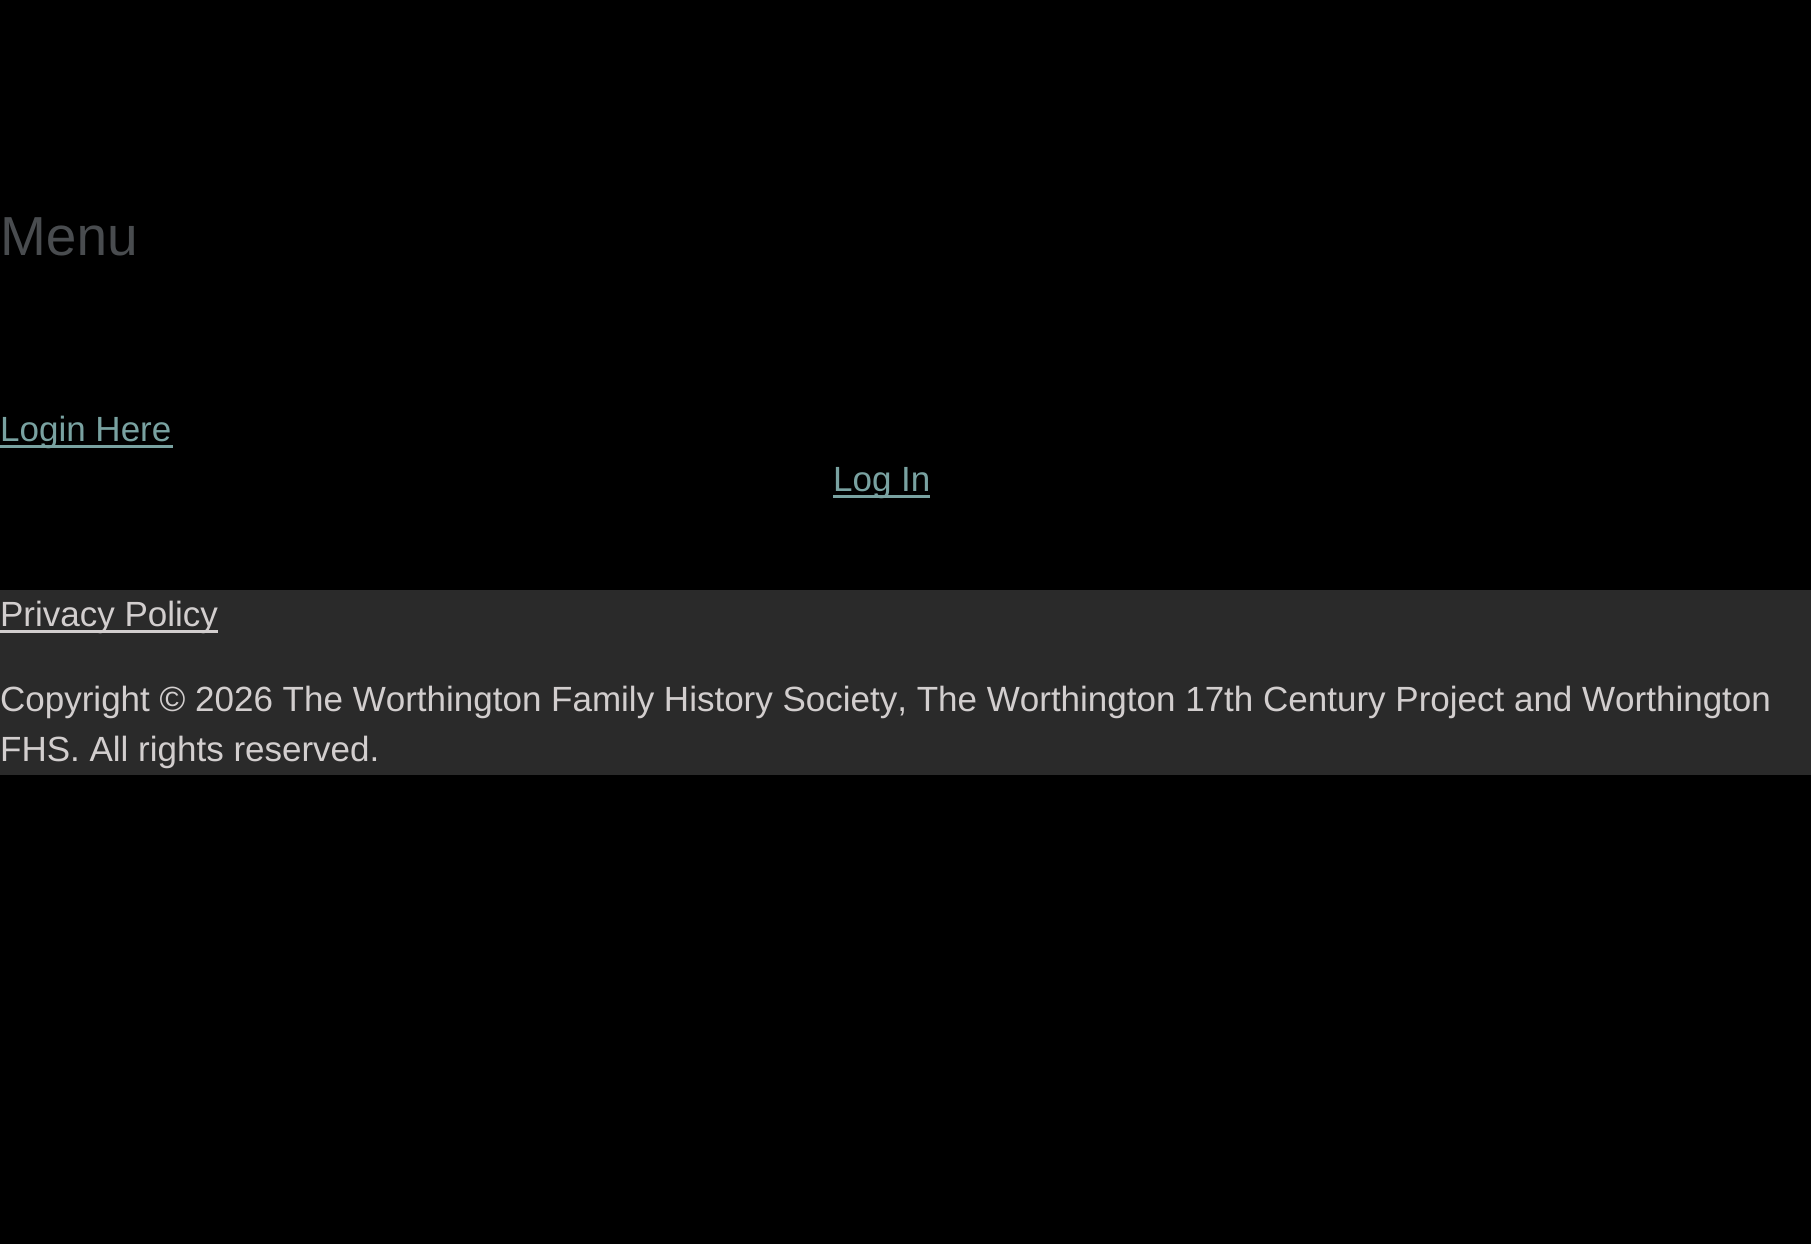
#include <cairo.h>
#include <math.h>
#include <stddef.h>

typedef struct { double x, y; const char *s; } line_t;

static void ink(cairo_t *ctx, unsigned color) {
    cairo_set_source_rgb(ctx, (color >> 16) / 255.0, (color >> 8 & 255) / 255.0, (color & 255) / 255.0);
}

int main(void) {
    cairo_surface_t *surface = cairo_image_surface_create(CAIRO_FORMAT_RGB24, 1811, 1244);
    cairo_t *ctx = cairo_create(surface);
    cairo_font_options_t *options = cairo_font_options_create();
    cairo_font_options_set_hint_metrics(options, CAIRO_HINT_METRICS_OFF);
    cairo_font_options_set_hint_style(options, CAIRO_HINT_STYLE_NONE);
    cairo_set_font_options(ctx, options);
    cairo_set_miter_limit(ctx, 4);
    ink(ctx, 0x000000);
    cairo_paint(ctx);
    cairo_select_font_face(ctx, "Liberation Sans", CAIRO_FONT_SLANT_NORMAL, CAIRO_FONT_WEIGHT_NORMAL);
    cairo_set_font_size(ctx, 55);
    ink(ctx, 0x494C4F);
    cairo_move_to(ctx, 0, 255);
    cairo_show_text(ctx, "Menu");
    ink(ctx, 0x79A2A1);
    cairo_rectangle(ctx, 0, 445, 173, 3);
    cairo_fill(ctx);
    cairo_set_font_size(ctx, 35);
    cairo_move_to(ctx, 0, 441);
    cairo_show_text(ctx, "Login Here");
    cairo_rectangle(ctx, 833, 495, 97, 3);
    cairo_fill(ctx);
    cairo_move_to(ctx, 833, 491);
    cairo_show_text(ctx, "Log In");
    ink(ctx, 0x2A2A2A);
    cairo_rectangle(ctx, 0, 590, 1811, 185);
    cairo_fill(ctx);
    ink(ctx, 0xD2CECE);
    cairo_rectangle(ctx, 0, 630, 218, 3);
    cairo_fill(ctx);
    {
        static const line_t items[] = {
            {0, 626, "Privacy Policy"},
            {0, 711, "Copyright © 2026 The Worthington Family History Society, The Worthington 17th Century Project and Worthington"},
            {0, 761, "FHS. All rights reserved."},
        };
        for (size_t i = 0; i < sizeof items / sizeof *items; i++) {
            cairo_move_to(ctx, items[i].x, items[i].y);
            cairo_show_text(ctx, items[i].s);
        }
    }
    cairo_surface_write_to_png(surface, "image.png");
    cairo_font_options_destroy(options);
    cairo_destroy(ctx);
    cairo_surface_destroy(surface);
    return 0;
}
